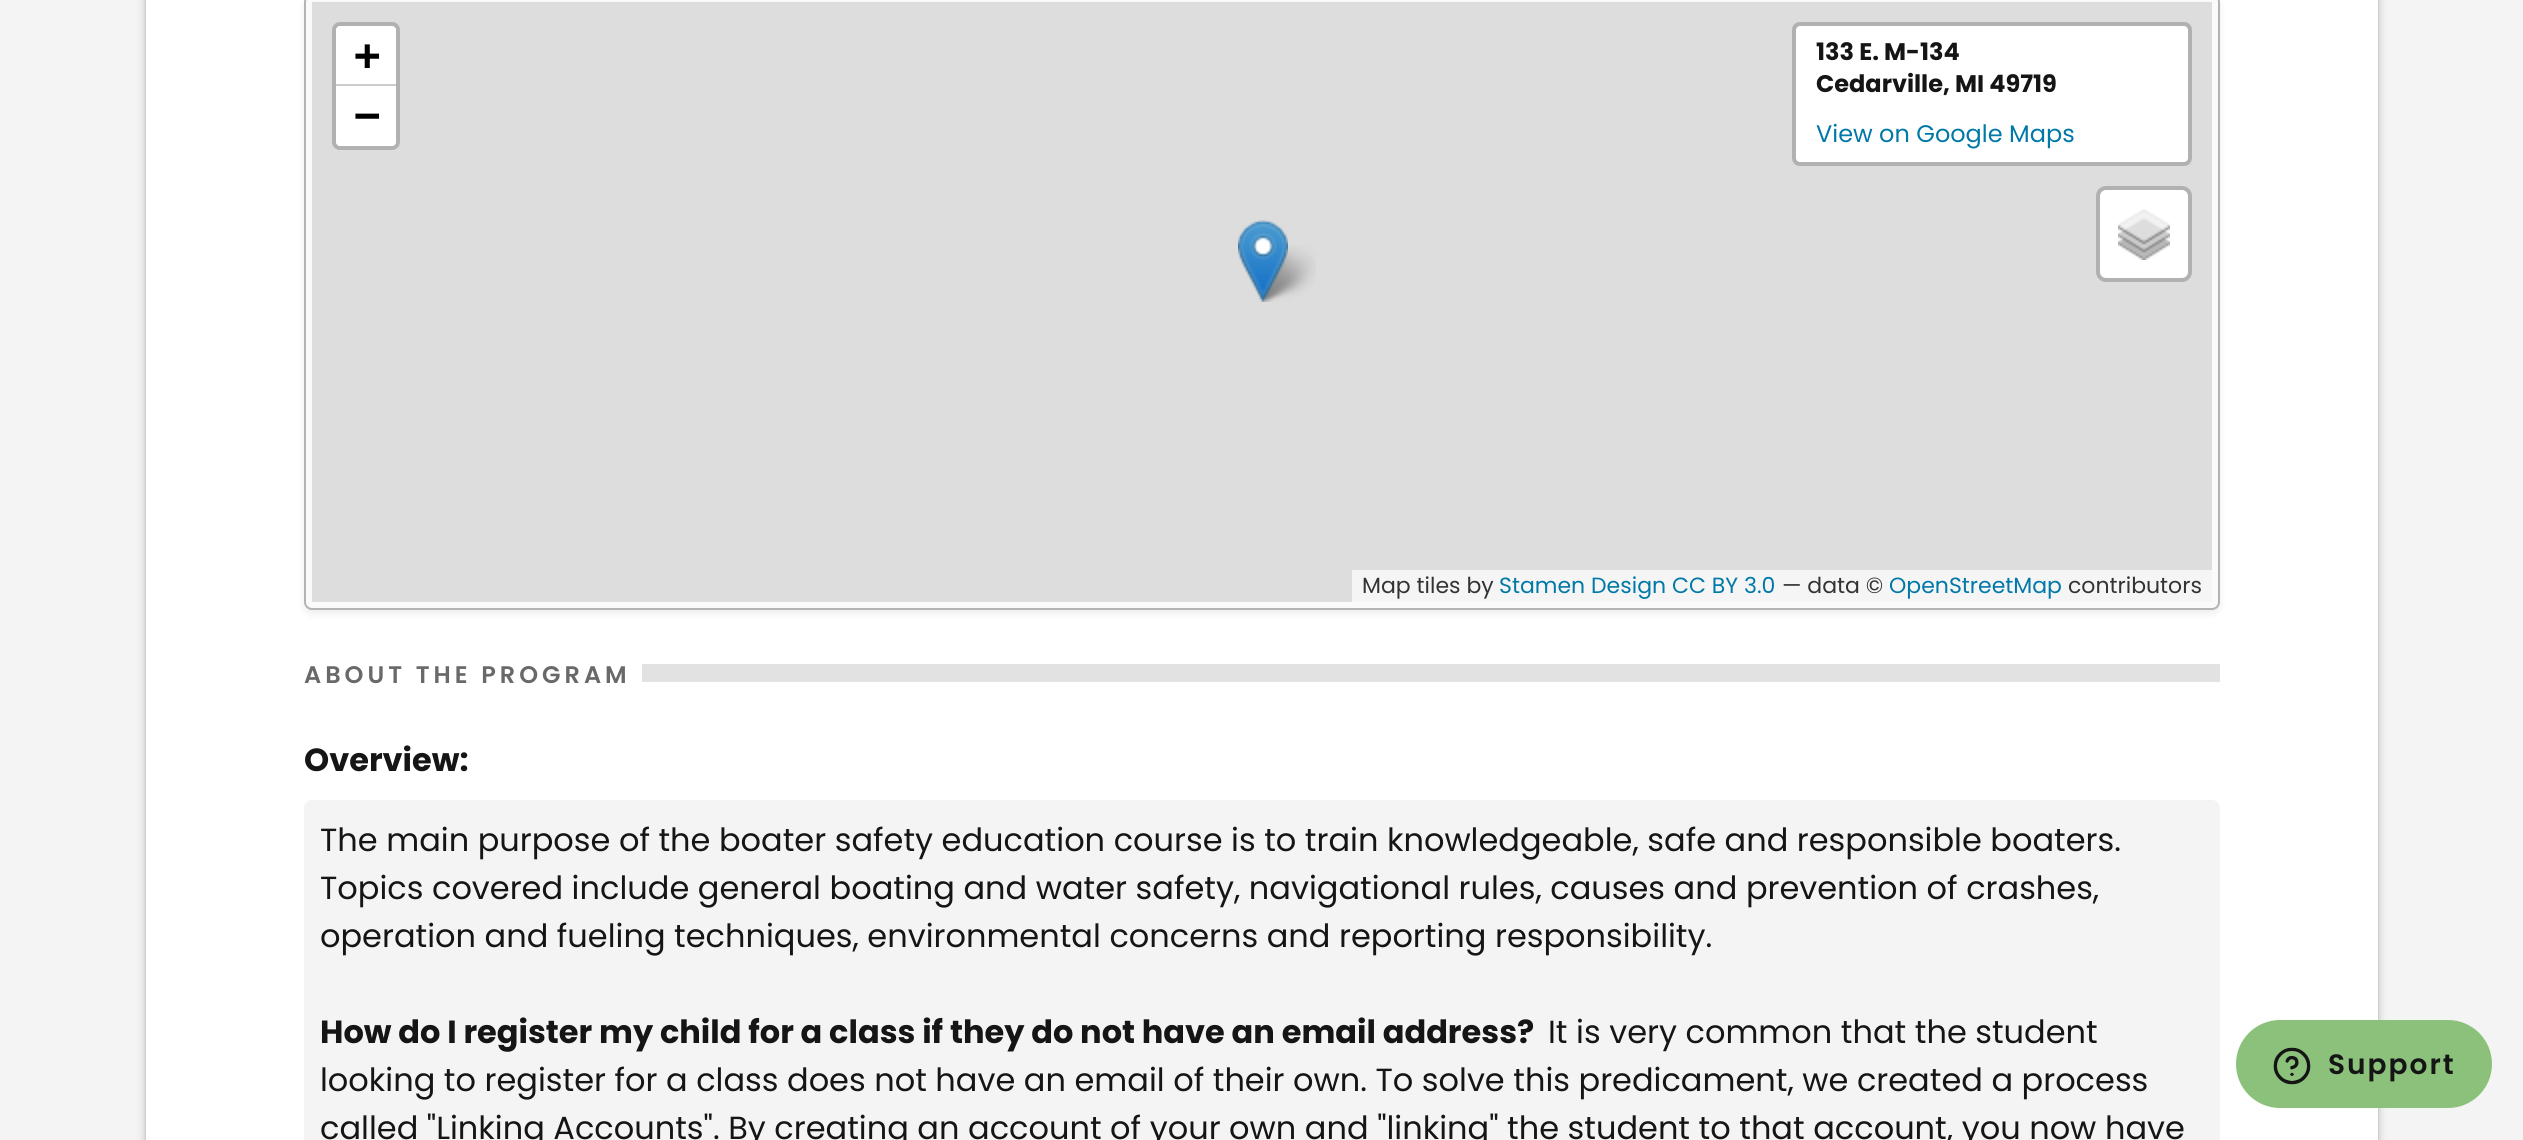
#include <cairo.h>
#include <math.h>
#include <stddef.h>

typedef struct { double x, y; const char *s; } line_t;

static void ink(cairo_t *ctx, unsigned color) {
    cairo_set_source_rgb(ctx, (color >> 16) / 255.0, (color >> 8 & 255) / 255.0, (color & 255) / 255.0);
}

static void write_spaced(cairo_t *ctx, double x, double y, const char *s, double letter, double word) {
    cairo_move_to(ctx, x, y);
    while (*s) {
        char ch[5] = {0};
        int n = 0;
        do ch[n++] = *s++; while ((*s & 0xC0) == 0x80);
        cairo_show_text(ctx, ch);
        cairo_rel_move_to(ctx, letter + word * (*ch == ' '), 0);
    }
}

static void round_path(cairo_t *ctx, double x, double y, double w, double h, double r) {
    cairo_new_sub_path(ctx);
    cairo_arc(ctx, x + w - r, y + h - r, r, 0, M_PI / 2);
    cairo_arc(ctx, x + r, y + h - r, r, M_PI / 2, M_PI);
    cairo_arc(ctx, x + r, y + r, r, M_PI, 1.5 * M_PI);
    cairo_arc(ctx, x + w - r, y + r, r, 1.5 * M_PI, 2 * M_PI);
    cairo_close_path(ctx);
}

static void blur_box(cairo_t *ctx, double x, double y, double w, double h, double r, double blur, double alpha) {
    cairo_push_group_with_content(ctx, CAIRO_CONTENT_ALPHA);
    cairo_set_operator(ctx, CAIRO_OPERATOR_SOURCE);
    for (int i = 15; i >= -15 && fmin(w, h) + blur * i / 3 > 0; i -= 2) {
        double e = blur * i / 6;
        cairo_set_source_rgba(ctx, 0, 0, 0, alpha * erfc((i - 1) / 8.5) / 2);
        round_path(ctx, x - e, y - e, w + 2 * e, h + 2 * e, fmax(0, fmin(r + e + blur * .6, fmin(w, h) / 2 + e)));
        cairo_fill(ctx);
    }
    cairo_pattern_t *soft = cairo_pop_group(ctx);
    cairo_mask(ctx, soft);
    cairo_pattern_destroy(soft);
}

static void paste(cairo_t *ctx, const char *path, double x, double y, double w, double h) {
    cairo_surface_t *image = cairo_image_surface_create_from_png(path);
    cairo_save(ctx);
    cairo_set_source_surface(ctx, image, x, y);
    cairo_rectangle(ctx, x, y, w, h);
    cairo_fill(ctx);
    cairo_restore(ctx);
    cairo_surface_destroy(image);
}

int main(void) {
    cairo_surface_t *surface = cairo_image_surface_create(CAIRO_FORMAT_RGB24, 2523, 1140);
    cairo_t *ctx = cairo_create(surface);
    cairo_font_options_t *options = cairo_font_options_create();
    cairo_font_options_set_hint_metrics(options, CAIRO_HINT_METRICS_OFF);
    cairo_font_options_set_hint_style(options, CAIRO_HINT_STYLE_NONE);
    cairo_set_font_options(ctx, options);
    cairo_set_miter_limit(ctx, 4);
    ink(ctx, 0xF4F4F4);
    cairo_paint(ctx);
    ink(ctx, 0x000000);
    blur_box(ctx, 146, -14, 2232, 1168, 8, 2, 0.14);
    blur_box(ctx, 146, -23, 2232, 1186, 8, 5, 0.2);
    ink(ctx, 0xFFFFFF);
    cairo_rectangle(ctx, 146, 0, 2232, 1140);
    cairo_fill(ctx);
    ink(ctx, 0x000000);
    blur_box(ctx, 304, -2, 1916, 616, 8, 4, 0.07);
    ink(ctx, 0xFAFAFA);
    round_path(ctx, 305, -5, 1914, 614, 7);
    cairo_fill_preserve(ctx);
    ink(ctx, 0xB3B3B3);
    cairo_stroke(ctx);
    ink(ctx, 0xDDDDDD);
    cairo_rectangle(ctx, 312, 2, 1900, 600);
    cairo_fill(ctx);
    round_path(ctx, 334, 24, 64, 124, 6);
    ink(ctx, 0xB1B1B1);
    cairo_set_line_width(ctx, 4);
    cairo_stroke(ctx);
    ink(ctx, 0xFFFFFF);
    cairo_new_path(ctx);
    cairo_move_to(ctx, 340, 26);
    cairo_line_to(ctx, 392, 26);
    cairo_curve_to(ctx, 394, 26, 396, 28, 396, 30);
    cairo_line_to(ctx, 396, 86);
    cairo_line_to(ctx, 336, 86);
    cairo_line_to(ctx, 336, 30);
    cairo_curve_to(ctx, 336, 28, 338, 26, 340, 26);
    cairo_close_path(ctx);
    cairo_fill(ctx);
    ink(ctx, 0xCCCCCC);
    cairo_rectangle(ctx, 336, 84, 60, 2);
    cairo_fill(ctx);
    cairo_select_font_face(ctx, "DejaVu Sans Mono", CAIRO_FONT_SLANT_NORMAL, CAIRO_FONT_WEIGHT_BOLD);
    cairo_set_font_size(ctx, 44);
    ink(ctx, 0x000000);
    cairo_move_to(ctx, 354, 70);
    cairo_show_text(ctx, "+");
    ink(ctx, 0xFFFFFF);
    cairo_new_path(ctx);
    cairo_move_to(ctx, 336, 86);
    cairo_line_to(ctx, 396, 86);
    cairo_line_to(ctx, 396, 142);
    cairo_curve_to(ctx, 396, 144, 394, 146, 392, 146);
    cairo_line_to(ctx, 340, 146);
    cairo_curve_to(ctx, 338, 146, 336, 144, 336, 142);
    cairo_close_path(ctx);
    cairo_fill(ctx);
    ink(ctx, 0x000000);
    cairo_move_to(ctx, 354, 130);
    cairo_show_text(ctx, "−");
    ink(ctx, 0xFFFFFF);
    round_path(ctx, 1796, 26, 392, 136, 4);
    cairo_fill(ctx);
    round_path(ctx, 1794, 24, 396, 140, 6);
    cairo_set_source_rgba(ctx, 0, 0, 0, 0.2);
    cairo_stroke(ctx);
    cairo_select_font_face(ctx, "Poppins", CAIRO_FONT_SLANT_NORMAL, CAIRO_FONT_WEIGHT_BOLD);
    cairo_set_font_size(ctx, 24);
    ink(ctx, 0x151515);
    cairo_move_to(ctx, 1816, 60);
    cairo_show_text(ctx, "133 E. M-134");
    cairo_move_to(ctx, 1816, 92);
    cairo_show_text(ctx, "Cedarville, MI 49719");
    cairo_select_font_face(ctx, "Poppins", CAIRO_FONT_SLANT_NORMAL, CAIRO_FONT_WEIGHT_NORMAL);
    ink(ctx, 0x0078A8);
    cairo_move_to(ctx, 1816, 142);
    cairo_show_text(ctx, "View on Google Maps");
    ink(ctx, 0xFFFFFF);
    round_path(ctx, 2100, 190, 88, 88, 6);
    cairo_fill(ctx);
    round_path(ctx, 2098, 188, 92, 92, 8);
    cairo_set_source_rgba(ctx, 0, 0, 0, 0.2);
    cairo_stroke(ctx);
    paste(ctx, "media/1.png", 2118, 209, 52, 51);
    ink(ctx, 0xF5F5F5);
    cairo_rectangle(ctx, 1352, 570, 860, 32);
    cairo_fill(ctx);
    cairo_set_font_size(ctx, 22);
    ink(ctx, 0x333333);
    cairo_move_to(ctx, 1362, 593);
    cairo_show_text(ctx, "Map tiles by");
    ink(ctx, 0x0078A8);
    cairo_move_to(ctx, 1499, 593);
    cairo_show_text(ctx, "Stamen Design CC BY 3.0");
    ink(ctx, 0x333333);
    cairo_move_to(ctx, 1782, 593);
    cairo_show_text(ctx, "— data ©");
    ink(ctx, 0x0078A8);
    cairo_move_to(ctx, 1889, 593);
    cairo_show_text(ctx, "OpenStreetMap");
    ink(ctx, 0x333333);
    cairo_move_to(ctx, 2068, 593);
    cairo_show_text(ctx, "contributors");
    paste(ctx, "media/3.png", 1256, 245, 60, 57);
    paste(ctx, "media/2.png", 1238, 220, 50, 82);
    cairo_select_font_face(ctx, "Poppins SemiBold", CAIRO_FONT_SLANT_NORMAL, CAIRO_FONT_WEIGHT_NORMAL);
    cairo_set_font_size(ctx, 24);
    ink(ctx, 0x696969);
    write_spaced(ctx, 304, 683, "ABOUT THE PROGRAM", 4, 0);
    ink(ctx, 0xE2E2E2);
    cairo_rectangle(ctx, 642, 664, 1578, 18);
    cairo_fill(ctx);
    cairo_select_font_face(ctx, "Poppins", CAIRO_FONT_SLANT_NORMAL, CAIRO_FONT_WEIGHT_BOLD);
    cairo_set_font_size(ctx, 32);
    ink(ctx, 0x151515);
    cairo_move_to(ctx, 304, 771);
    cairo_show_text(ctx, "Overview:");
    ink(ctx, 0xF4F4F4);
    round_path(ctx, 304, 800, 1916, 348, 8);
    cairo_fill(ctx);
    cairo_select_font_face(ctx, "Poppins", CAIRO_FONT_SLANT_NORMAL, CAIRO_FONT_WEIGHT_NORMAL);
    ink(ctx, 0x151515);
    {
        static const line_t items[] = {
            {320, 851, "The main purpose of the boater safety education course is to train knowledgeable, safe and responsible boaters."},
            {320, 899, "Topics covered include general boating and water safety, navigational rules, causes and prevention of crashes,"},
            {320, 947, "operation and fueling techniques, environmental concerns and reporting responsibility."},
        };
        for (size_t i = 0; i < sizeof items / sizeof *items; i++) {
            cairo_move_to(ctx, items[i].x, items[i].y);
            cairo_show_text(ctx, items[i].s);
        }
    }
    cairo_select_font_face(ctx, "Poppins", CAIRO_FONT_SLANT_NORMAL, CAIRO_FONT_WEIGHT_BOLD);
    cairo_move_to(ctx, 320, 1043);
    cairo_show_text(ctx, "How do I register my child for a class if they do not have an email address?");
    cairo_select_font_face(ctx, "Poppins", CAIRO_FONT_SLANT_NORMAL, CAIRO_FONT_WEIGHT_NORMAL);
    {
        static const line_t items[] = {
            {1548, 1043, "It is very common that the student"},
            {320, 1091, "looking to register for a class does not have an email of their own. To solve this predicament, we created a process"},
            {320, 1139, "called \"Linking Accounts\". By creating an account of your own and \"linking\" the student to that account, you now have"},
        };
        for (size_t i = 0; i < sizeof items / sizeof *items; i++) {
            cairo_move_to(ctx, items[i].x, items[i].y);
            cairo_show_text(ctx, items[i].s);
        }
    }
    ink(ctx, 0x8BC17B);
    round_path(ctx, 2238, 1022, 252, 84, 42);
    cairo_fill_preserve(ctx);
    cairo_stroke(ctx);
    paste(ctx, "media/4.png", 2273, 1047, 38, 38);
    cairo_select_font_face(ctx, "Poppins SemiBold", CAIRO_FONT_SLANT_NORMAL, CAIRO_FONT_WEIGHT_NORMAL);
    cairo_set_font_size(ctx, 28);
    ink(ctx, 0x151515);
    write_spaced(ctx, 2328, 1074, "Support", 2, 0);
    cairo_surface_write_to_png(surface, "image.png");
    cairo_font_options_destroy(options);
    cairo_destroy(ctx);
    cairo_surface_destroy(surface);
    return 0;
}
